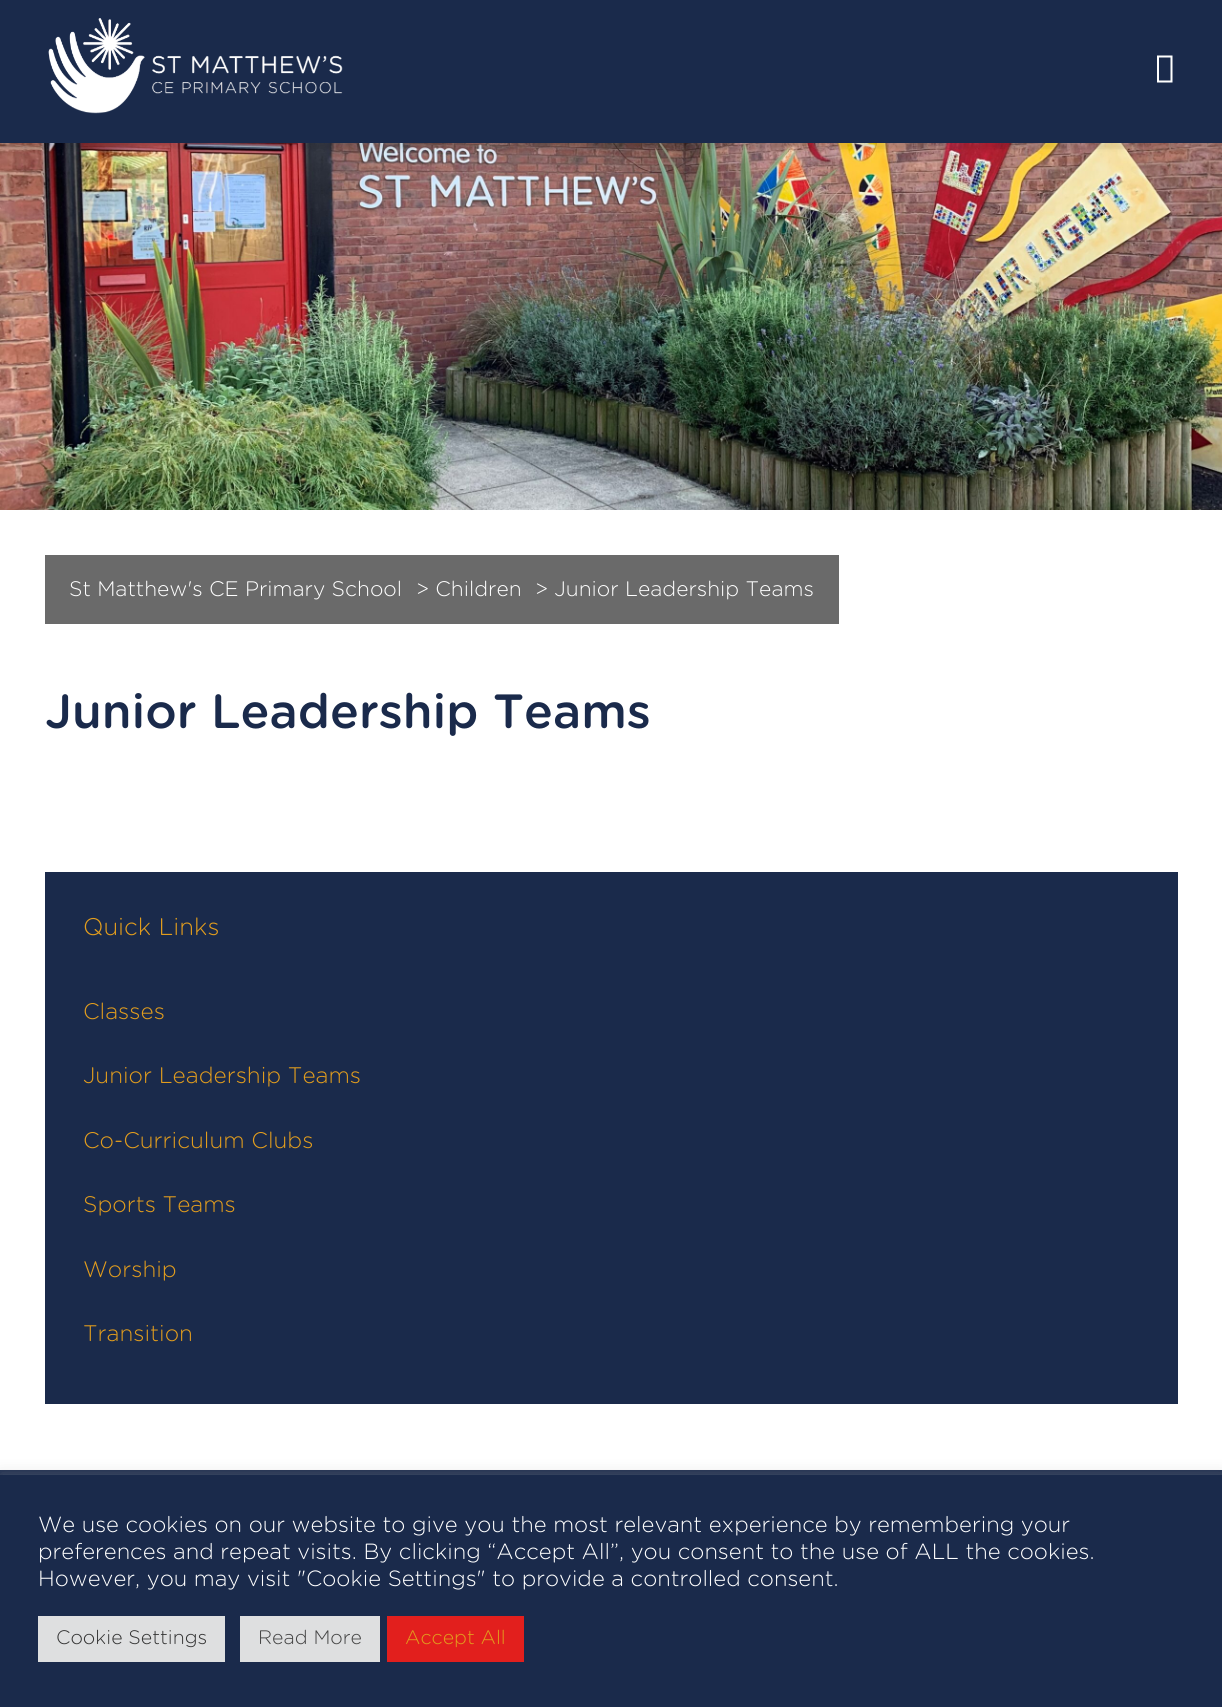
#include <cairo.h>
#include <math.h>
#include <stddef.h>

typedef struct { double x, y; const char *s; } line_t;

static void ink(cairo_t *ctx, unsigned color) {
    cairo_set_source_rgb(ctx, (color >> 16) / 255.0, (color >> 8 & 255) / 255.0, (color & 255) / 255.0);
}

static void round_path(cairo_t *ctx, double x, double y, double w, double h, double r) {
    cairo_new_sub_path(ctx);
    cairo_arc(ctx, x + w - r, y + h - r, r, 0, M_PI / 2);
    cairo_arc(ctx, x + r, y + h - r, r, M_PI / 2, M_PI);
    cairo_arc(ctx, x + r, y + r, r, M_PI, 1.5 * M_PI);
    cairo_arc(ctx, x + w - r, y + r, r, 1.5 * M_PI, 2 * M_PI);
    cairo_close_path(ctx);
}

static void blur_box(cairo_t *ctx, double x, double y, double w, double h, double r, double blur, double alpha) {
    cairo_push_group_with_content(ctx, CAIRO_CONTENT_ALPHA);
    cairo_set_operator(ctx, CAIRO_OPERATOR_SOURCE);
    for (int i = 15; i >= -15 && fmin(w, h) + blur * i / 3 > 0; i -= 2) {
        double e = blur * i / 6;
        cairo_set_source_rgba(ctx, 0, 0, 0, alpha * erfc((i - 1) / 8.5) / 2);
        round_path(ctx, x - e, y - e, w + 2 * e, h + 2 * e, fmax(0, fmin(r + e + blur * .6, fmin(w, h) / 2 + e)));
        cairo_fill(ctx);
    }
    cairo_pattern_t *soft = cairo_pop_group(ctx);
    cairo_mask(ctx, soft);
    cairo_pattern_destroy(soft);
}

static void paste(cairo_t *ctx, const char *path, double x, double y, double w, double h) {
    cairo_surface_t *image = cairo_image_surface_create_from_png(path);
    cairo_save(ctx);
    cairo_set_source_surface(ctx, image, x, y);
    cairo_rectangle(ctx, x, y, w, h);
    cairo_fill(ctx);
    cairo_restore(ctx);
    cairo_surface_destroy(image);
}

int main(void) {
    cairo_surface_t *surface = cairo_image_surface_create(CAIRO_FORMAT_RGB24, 1222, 1707);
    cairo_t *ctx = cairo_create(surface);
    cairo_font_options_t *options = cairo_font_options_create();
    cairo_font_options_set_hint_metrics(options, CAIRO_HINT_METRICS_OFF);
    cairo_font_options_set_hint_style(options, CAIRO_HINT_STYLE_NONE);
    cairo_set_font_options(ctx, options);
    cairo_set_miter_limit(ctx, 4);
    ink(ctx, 0xFFFFFF);
    cairo_paint(ctx);
    paste(ctx, "media/2.png", 0, 143, 1222, 367);
    ink(ctx, 0x000000);
    blur_box(ctx, 0, 6, 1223, 143, 0, 1.5, 0.09);
    ink(ctx, 0x1A2A4B);
    cairo_rectangle(ctx, 0, 0, 1222, 143);
    cairo_fill(ctx);
    paste(ctx, "media/1.png", 48, 18, 295, 96);
    ink(ctx, 0xFFFFFF);
    cairo_new_path(ctx);
    cairo_move_to(ctx, 1157, 82.5);
    cairo_line_to(ctx, 1157, 55.5);
    cairo_line_to(ctx, 1172.5, 55.5);
    cairo_line_to(ctx, 1172.5, 82.5);
    cairo_close_path(ctx);
    cairo_move_to(ctx, 1159, 80.5);
    cairo_line_to(ctx, 1170.5, 80.5);
    cairo_line_to(ctx, 1170.5, 57.5);
    cairo_line_to(ctx, 1159, 57.5);
    cairo_close_path(ctx);
    cairo_fill(ctx);
    ink(ctx, 0x6A6A6A);
    cairo_rectangle(ctx, 45, 555, 794, 69);
    cairo_fill(ctx);
    cairo_select_font_face(ctx, "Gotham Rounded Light", CAIRO_FONT_SLANT_NORMAL, CAIRO_FONT_WEIGHT_NORMAL);
    cairo_set_font_size(ctx, 21);
    ink(ctx, 0xFFFFFF);
    {
        static const line_t items[] = {
            {69, 596, "St Matthew's CE Primary School"},
            {416, 596, "> Children"},
            {535, 596, "> Junior Leadership Teams"},
        };
        for (size_t i = 0; i < sizeof items / sizeof *items; i++) {
            cairo_move_to(ctx, items[i].x, items[i].y);
            cairo_show_text(ctx, items[i].s);
        }
    }
    cairo_select_font_face(ctx, "Gotham Rounded Medium", CAIRO_FONT_SLANT_NORMAL, CAIRO_FONT_WEIGHT_NORMAL);
    cairo_set_font_size(ctx, 48);
    ink(ctx, 0x1A2A4B);
    cairo_move_to(ctx, 45, 728);
    cairo_show_text(ctx, "Junior Leadership Teams");
    cairo_rectangle(ctx, 45, 872, 1133, 532);
    cairo_fill(ctx);
    cairo_select_font_face(ctx, "Gotham Rounded Light", CAIRO_FONT_SLANT_NORMAL, CAIRO_FONT_WEIGHT_NORMAL);
    cairo_set_font_size(ctx, 24);
    ink(ctx, 0xE29D1D);
    cairo_move_to(ctx, 83, 935);
    cairo_show_text(ctx, "Quick Links");
    cairo_set_font_size(ctx, 22.5);
    {
        static const line_t items[] = {
            {83, 1019, "Classes"},
            {83, 1083, "Junior Leadership Teams"},
            {83, 1148, "Co-Curriculum Clubs"},
            {83, 1212, "Sports Teams"},
            {83, 1277, "Worship"},
            {83, 1341, "Transition"},
        };
        for (size_t i = 0; i < sizeof items / sizeof *items; i++) {
            cairo_move_to(ctx, items[i].x, items[i].y);
            cairo_show_text(ctx, items[i].s);
        }
    }
    ink(ctx, 0x1A2A4B);
    cairo_rectangle(ctx, 0, 1470, 1222, 5);
    cairo_fill(ctx);
    ink(ctx, 0xACABAB);
    blur_box(ctx, 0, 1473, 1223, 233, 0, 7.5, 0.3);
    ink(ctx, 0x1A2A4B);
    cairo_rectangle(ctx, 0, 1475, 1222, 232);
    cairo_fill(ctx);
    cairo_set_font_size(ctx, 22);
    ink(ctx, 0xFFFFFF);
    {
        static const line_t items[] = {
            {38, 1532, "We use cookies on our website to give you the most relevant experience by remembering your"},
            {38, 1559, "preferences and repeat visits. By clicking “Accept All”, you consent to the use of ALL the cookies."},
            {38, 1586, "However, you may visit \"Cookie Settings\" to provide a controlled consent."},
        };
        for (size_t i = 0; i < sizeof items / sizeof *items; i++) {
            cairo_move_to(ctx, items[i].x, items[i].y);
            cairo_show_text(ctx, items[i].s);
        }
    }
    ink(ctx, 0xDEDFE0);
    cairo_rectangle(ctx, 38, 1616, 187, 46);
    cairo_fill(ctx);
    cairo_set_font_size(ctx, 19.5);
    ink(ctx, 0x333333);
    cairo_move_to(ctx, 56, 1644);
    cairo_show_text(ctx, "Cookie Settings");
    ink(ctx, 0xDEDFE0);
    cairo_rectangle(ctx, 240, 1616, 140, 46);
    cairo_fill(ctx);
    ink(ctx, 0x444444);
    cairo_move_to(ctx, 258, 1644);
    cairo_show_text(ctx, "Read More");
    ink(ctx, 0xE21F1D);
    cairo_rectangle(ctx, 387, 1616, 137, 46);
    cairo_fill(ctx);
    ink(ctx, 0xE29D1D);
    cairo_move_to(ctx, 405, 1644);
    cairo_show_text(ctx, "Accept All");
    cairo_surface_write_to_png(surface, "image.png");
    cairo_font_options_destroy(options);
    cairo_destroy(ctx);
    cairo_surface_destroy(surface);
    return 0;
}
